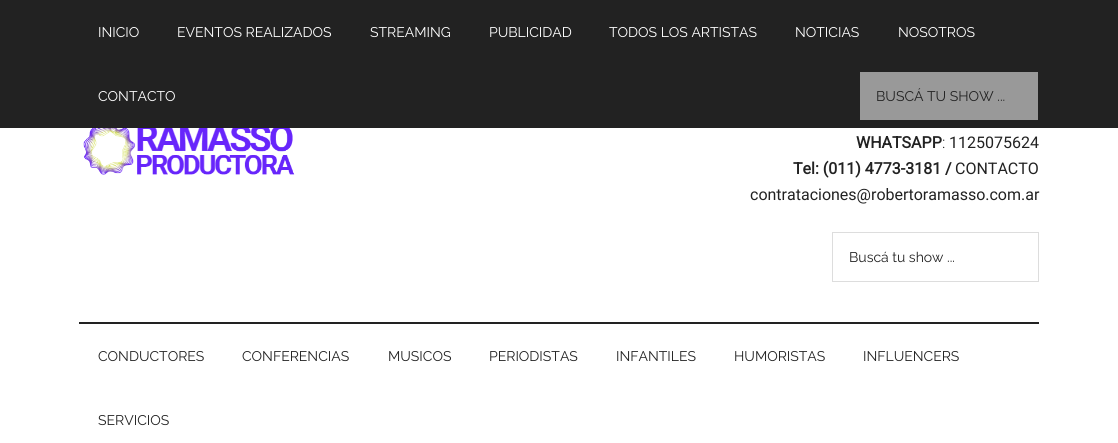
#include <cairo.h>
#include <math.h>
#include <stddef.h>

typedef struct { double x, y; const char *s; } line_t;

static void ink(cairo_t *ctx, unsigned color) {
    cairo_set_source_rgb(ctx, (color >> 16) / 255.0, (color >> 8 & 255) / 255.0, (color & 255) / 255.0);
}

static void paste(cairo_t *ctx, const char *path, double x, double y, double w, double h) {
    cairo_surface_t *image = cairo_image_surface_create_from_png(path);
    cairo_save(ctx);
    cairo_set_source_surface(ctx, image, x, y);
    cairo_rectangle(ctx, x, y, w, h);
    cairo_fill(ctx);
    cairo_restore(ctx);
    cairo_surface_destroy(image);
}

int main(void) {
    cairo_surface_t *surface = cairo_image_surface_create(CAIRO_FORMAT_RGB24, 1118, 443);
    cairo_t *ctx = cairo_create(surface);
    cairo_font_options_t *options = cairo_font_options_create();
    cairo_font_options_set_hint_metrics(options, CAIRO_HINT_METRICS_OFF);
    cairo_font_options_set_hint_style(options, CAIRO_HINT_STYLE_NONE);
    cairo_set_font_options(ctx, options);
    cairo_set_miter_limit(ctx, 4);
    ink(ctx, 0xFFFFFF);
    cairo_paint(ctx);
    ink(ctx, 0x222222);
    cairo_rectangle(ctx, 0, 0, 1118, 128);
    cairo_fill(ctx);
    cairo_select_font_face(ctx, "Raleway", CAIRO_FONT_SLANT_NORMAL, CAIRO_FONT_WEIGHT_NORMAL);
    cairo_set_font_size(ctx, 14);
    ink(ctx, 0xFFFFFF);
    {
        static const line_t items[] = {
            {98, 37, "INICIO"},
            {177, 37, "EVENTOS REALIZADOS"},
            {370, 37, "STREAMING"},
            {489, 37, "PUBLICIDAD"},
            {609, 37, "TODOS LOS ARTISTAS"},
            {795, 37, "NOTICIAS"},
            {898, 37, "NOSOTROS"},
            {98, 101, "CONTACTO"},
        };
        for (size_t i = 0; i < sizeof items / sizeof *items; i++) {
            cairo_move_to(ctx, items[i].x, items[i].y);
            cairo_show_text(ctx, items[i].s);
        }
    }
    ink(ctx, 0x999999);
    cairo_rectangle(ctx, 860, 72, 178, 48);
    cairo_fill(ctx);
    ink(ctx, 0x222222);
    cairo_move_to(ctx, 876, 101);
    cairo_show_text(ctx, "BUSCÁ TU SHOW ...");
    cairo_rectangle(ctx, 79, 322, 960, 2);
    cairo_fill(ctx);
    paste(ctx, "media/1.png", 83, 128, 212, 47);
    cairo_select_font_face(ctx, "Roboto", CAIRO_FONT_SLANT_NORMAL, CAIRO_FONT_WEIGHT_BOLD);
    cairo_set_font_size(ctx, 16);
    cairo_move_to(ctx, 856, 148);
    cairo_show_text(ctx, "WHATSAPP");
    cairo_select_font_face(ctx, "Roboto Light", CAIRO_FONT_SLANT_NORMAL, CAIRO_FONT_WEIGHT_NORMAL);
    cairo_move_to(ctx, 942, 148);
    cairo_show_text(ctx, ":");
    cairo_select_font_face(ctx, "Roboto", CAIRO_FONT_SLANT_NORMAL, CAIRO_FONT_WEIGHT_NORMAL);
    cairo_move_to(ctx, 949, 148);
    cairo_show_text(ctx, "1125075624");
    cairo_select_font_face(ctx, "Roboto", CAIRO_FONT_SLANT_NORMAL, CAIRO_FONT_WEIGHT_BOLD);
    cairo_move_to(ctx, 793, 174);
    cairo_show_text(ctx, "Tel: (011) 4773-3181 /");
    cairo_select_font_face(ctx, "Roboto", CAIRO_FONT_SLANT_NORMAL, CAIRO_FONT_WEIGHT_NORMAL);
    cairo_move_to(ctx, 955, 174);
    cairo_show_text(ctx, "CONTACTO");
    cairo_move_to(ctx, 750, 200);
    cairo_show_text(ctx, "contrataciones@robertoramasso.com.ar");
    cairo_rectangle(ctx, 832.5, 232.5, 206, 49);
    ink(ctx, 0xDDDDDD);
    cairo_set_line_width(ctx, 1);
    cairo_stroke(ctx);
    cairo_select_font_face(ctx, "Raleway", CAIRO_FONT_SLANT_NORMAL, CAIRO_FONT_WEIGHT_NORMAL);
    cairo_set_font_size(ctx, 14);
    ink(ctx, 0x222222);
    {
        static const line_t items[] = {
            {849, 262, "Buscá tu show ..."},
            {98, 361, "CONDUCTORES"},
            {242, 361, "CONFERENCIAS"},
            {388, 361, "MUSICOS"},
            {489, 361, "PERIODISTAS"},
            {616, 361, "INFANTILES"},
            {734, 361, "HUMORISTAS"},
            {863, 361, "INFLUENCERS"},
            {98, 425, "SERVICIOS"},
        };
        for (size_t i = 0; i < sizeof items / sizeof *items; i++) {
            cairo_move_to(ctx, items[i].x, items[i].y);
            cairo_show_text(ctx, items[i].s);
        }
    }
    cairo_surface_write_to_png(surface, "image.png");
    cairo_font_options_destroy(options);
    cairo_destroy(ctx);
    cairo_surface_destroy(surface);
    return 0;
}
